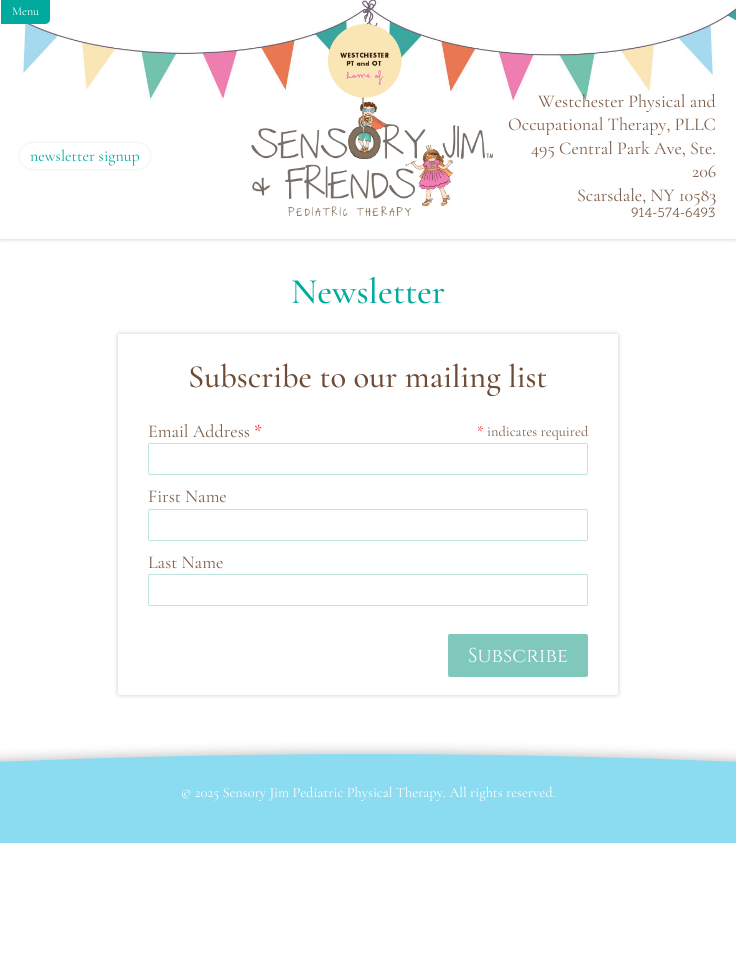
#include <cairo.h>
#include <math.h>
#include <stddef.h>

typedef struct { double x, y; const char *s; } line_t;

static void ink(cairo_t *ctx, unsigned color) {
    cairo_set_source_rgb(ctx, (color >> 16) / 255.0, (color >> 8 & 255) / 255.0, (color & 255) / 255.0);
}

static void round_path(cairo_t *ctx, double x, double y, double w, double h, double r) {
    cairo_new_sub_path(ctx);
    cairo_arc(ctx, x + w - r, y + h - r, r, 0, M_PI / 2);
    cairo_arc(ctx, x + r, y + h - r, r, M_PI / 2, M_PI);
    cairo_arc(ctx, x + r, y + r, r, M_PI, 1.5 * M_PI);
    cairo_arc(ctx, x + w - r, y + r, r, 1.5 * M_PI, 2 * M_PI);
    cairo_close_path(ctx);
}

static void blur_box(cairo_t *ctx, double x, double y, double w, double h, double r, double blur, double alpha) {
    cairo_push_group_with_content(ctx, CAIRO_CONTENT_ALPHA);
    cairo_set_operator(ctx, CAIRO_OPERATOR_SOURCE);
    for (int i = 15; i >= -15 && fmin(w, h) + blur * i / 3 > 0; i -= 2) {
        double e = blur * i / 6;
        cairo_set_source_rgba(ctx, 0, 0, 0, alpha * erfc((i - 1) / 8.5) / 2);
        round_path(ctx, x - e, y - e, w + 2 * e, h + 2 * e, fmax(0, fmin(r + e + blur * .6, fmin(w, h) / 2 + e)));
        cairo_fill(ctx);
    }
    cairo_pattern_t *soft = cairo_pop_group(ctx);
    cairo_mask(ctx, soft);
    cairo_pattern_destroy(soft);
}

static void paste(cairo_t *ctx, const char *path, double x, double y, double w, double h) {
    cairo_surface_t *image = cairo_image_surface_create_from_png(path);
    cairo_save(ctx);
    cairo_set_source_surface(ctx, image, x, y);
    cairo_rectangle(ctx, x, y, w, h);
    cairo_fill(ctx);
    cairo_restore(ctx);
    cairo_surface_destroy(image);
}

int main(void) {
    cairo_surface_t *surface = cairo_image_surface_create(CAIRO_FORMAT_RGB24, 736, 961);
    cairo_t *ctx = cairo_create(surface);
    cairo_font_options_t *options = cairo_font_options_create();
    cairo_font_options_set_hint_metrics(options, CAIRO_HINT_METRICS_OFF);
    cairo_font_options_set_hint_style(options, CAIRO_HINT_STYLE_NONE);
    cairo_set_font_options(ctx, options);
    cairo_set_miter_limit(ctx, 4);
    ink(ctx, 0xFFFFFF);
    cairo_paint(ctx);
    cairo_save(ctx);
    cairo_rectangle(ctx, 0, 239, 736, 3);
    cairo_clip(ctx);
    ink(ctx, 0x000000);
    blur_box(ctx, 0, 0, 736, 239, 0, 2.5, 0.2);
    cairo_restore(ctx);
    paste(ctx, "media/1.png", 0, 0, 736, 101);
    ink(ctx, 0x00AA9D);
    cairo_new_path(ctx);
    cairo_move_to(ctx, 0, 0);
    cairo_line_to(ctx, 50, 0);
    cairo_line_to(ctx, 50, 19);
    cairo_curve_to(ctx, 50, 22, 48, 24, 45, 24);
    cairo_line_to(ctx, 0, 24);
    cairo_close_path(ctx);
    cairo_fill(ctx);
    ink(ctx, 0xFFFFFF);
    cairo_rectangle(ctx, 0, 0, 1, 24);
    cairo_fill(ctx);
    cairo_select_font_face(ctx, "Cormorant Garamond", CAIRO_FONT_SLANT_NORMAL, CAIRO_FONT_WEIGHT_NORMAL);
    cairo_set_font_size(ctx, 12);
    cairo_move_to(ctx, 12, 15);
    cairo_show_text(ctx, "Menu");
    ink(ctx, 0x000000);
    blur_box(ctx, 20, 143, 130, 26, 13, 1.5, 0.1);
    ink(ctx, 0xFFFFFF);
    round_path(ctx, 20, 143, 130, 26, 13);
    cairo_fill(ctx);
    cairo_set_font_size(ctx, 16);
    ink(ctx, 0x00AA9D);
    cairo_move_to(ctx, 30, 161);
    cairo_show_text(ctx, "newsletter signup");
    paste(ctx, "media/2.png", 251, 24, 242, 192);
    cairo_set_font_size(ctx, 18);
    ink(ctx, 0x7C5D49);
    {
        static const line_t items[] = {
            {538, 107, "Westchester Physical and"},
            {508, 130, "Occupational Therapy, PLLC"},
            {531, 154, "495 Central Park Ave, Ste."},
            {692, 177, "206"},
            {577, 201, "Scarsdale, NY 10583"},
        };
        for (size_t i = 0; i < sizeof items / sizeof *items; i++) {
            cairo_move_to(ctx, items[i].x, items[i].y);
            cairo_show_text(ctx, items[i].s);
        }
    }
    cairo_select_font_face(ctx, "Scope One", CAIRO_FONT_SLANT_NORMAL, CAIRO_FONT_WEIGHT_NORMAL);
    cairo_set_font_size(ctx, 14.4);
    ink(ctx, 0x6E4B35);
    cairo_move_to(ctx, 631, 217);
    cairo_show_text(ctx, "914-574-6493");
    cairo_select_font_face(ctx, "Cormorant Garamond Medium", CAIRO_FONT_SLANT_NORMAL, CAIRO_FONT_WEIGHT_NORMAL);
    cairo_set_font_size(ctx, 36);
    ink(ctx, 0x00AA9D);
    cairo_move_to(ctx, 291, 303);
    cairo_show_text(ctx, "Newsletter");
    cairo_save(ctx);
    cairo_set_fill_rule(ctx, CAIRO_FILL_RULE_EVEN_ODD);
    cairo_new_path(ctx);
    cairo_move_to(ctx, 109, 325);
    cairo_line_to(ctx, 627, 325);
    cairo_line_to(ctx, 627, 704);
    cairo_line_to(ctx, 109, 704);
    cairo_close_path(ctx);
    cairo_move_to(ctx, 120, 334);
    cairo_line_to(ctx, 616, 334);
    cairo_curve_to(ctx, 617, 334, 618, 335, 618, 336);
    cairo_line_to(ctx, 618, 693);
    cairo_curve_to(ctx, 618, 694, 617, 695, 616, 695);
    cairo_line_to(ctx, 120, 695);
    cairo_curve_to(ctx, 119, 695, 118, 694, 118, 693);
    cairo_line_to(ctx, 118, 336);
    cairo_curve_to(ctx, 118, 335, 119, 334, 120, 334);
    cairo_close_path(ctx);
    cairo_clip(ctx);
    ink(ctx, 0x000000);
    blur_box(ctx, 118, 334, 500, 361, 2, 2.5, 0.2);
    cairo_restore(ctx);
    cairo_set_font_size(ctx, 32.4);
    ink(ctx, 0x6E4B35);
    cairo_move_to(ctx, 188, 387);
    cairo_show_text(ctx, "Subscribe to our mailing list");
    cairo_select_font_face(ctx, "Cormorant Garamond", CAIRO_FONT_SLANT_NORMAL, CAIRO_FONT_WEIGHT_NORMAL);
    cairo_set_font_size(ctx, 18);
    ink(ctx, 0x7C5D49);
    cairo_move_to(ctx, 148, 437);
    cairo_show_text(ctx, "Email Address");
    ink(ctx, 0xFF0000);
    cairo_move_to(ctx, 254, 437);
    cairo_show_text(ctx, "*");
    round_path(ctx, 148.5, 443.5, 439, 31, 1.5);
    ink(ctx, 0xC0E4DE);
    cairo_set_line_width(ctx, 1);
    cairo_stroke(ctx);
    cairo_set_font_size(ctx, 14.4);
    ink(ctx, 0xFF0000);
    cairo_move_to(ctx, 477, 436);
    cairo_show_text(ctx, "*");
    ink(ctx, 0x7C5D49);
    cairo_move_to(ctx, 487, 436);
    cairo_show_text(ctx, "indicates required");
    cairo_set_font_size(ctx, 18);
    cairo_move_to(ctx, 148, 502);
    cairo_show_text(ctx, "First Name");
    round_path(ctx, 148.5, 509.5, 439, 31, 1.5);
    ink(ctx, 0xC0E4DE);
    cairo_stroke(ctx);
    ink(ctx, 0x7C5D49);
    cairo_move_to(ctx, 148, 568);
    cairo_show_text(ctx, "Last Name");
    round_path(ctx, 148.5, 574.5, 439, 31, 1.5);
    ink(ctx, 0xC0E4DE);
    cairo_stroke(ctx);
    ink(ctx, 0x81C8BC);
    round_path(ctx, 448, 634, 140, 43, 2);
    cairo_fill(ctx);
    cairo_select_font_face(ctx, "Cinzel", CAIRO_FONT_SLANT_NORMAL, CAIRO_FONT_WEIGHT_NORMAL);
    cairo_set_font_size(ctx, 20);
    ink(ctx, 0xFFFFFF);
    cairo_move_to(ctx, 468, 662);
    cairo_show_text(ctx, "Subscribe");
    ink(ctx, 0x8BDCF1);
    cairo_rectangle(ctx, 0, 754, 736, 89);
    cairo_fill(ctx);
    paste(ctx, "media/3.png", 0, 742, 736, 20);
    cairo_select_font_face(ctx, "Cormorant Garamond", CAIRO_FONT_SLANT_NORMAL, CAIRO_FONT_WEIGHT_NORMAL);
    cairo_set_font_size(ctx, 14.4);
    ink(ctx, 0xFFFFFF);
    cairo_move_to(ctx, 181, 797);
    cairo_show_text(ctx, "© 2025 Sensory Jim Pediatric Physical Therapy. All rights reserved.");
    cairo_surface_write_to_png(surface, "image.png");
    cairo_font_options_destroy(options);
    cairo_destroy(ctx);
    cairo_surface_destroy(surface);
    return 0;
}
